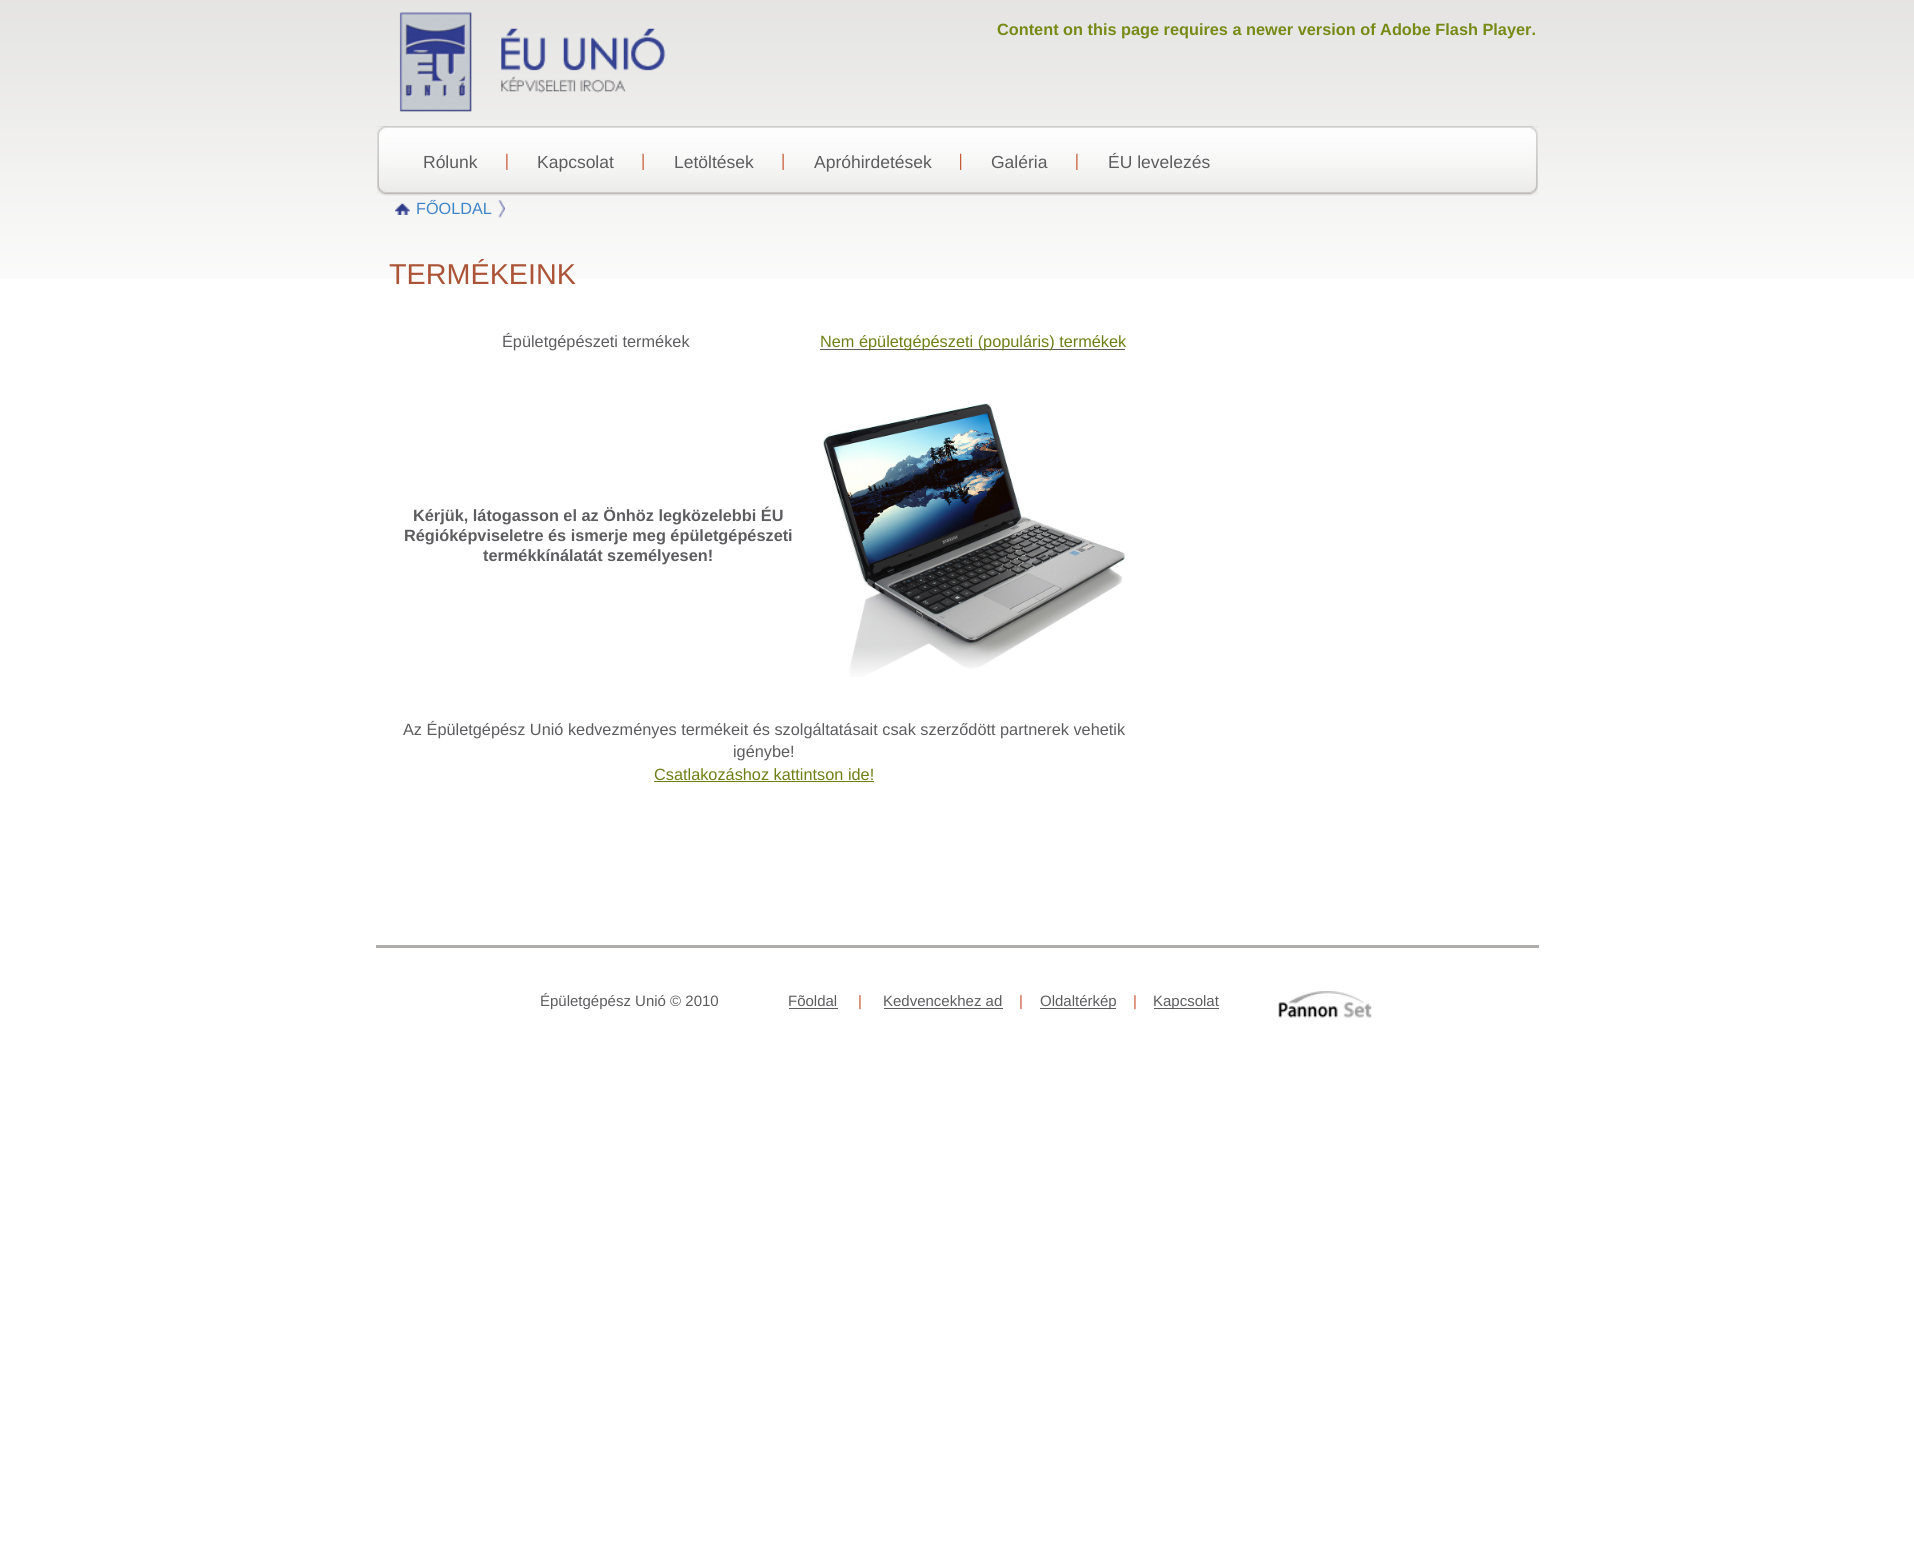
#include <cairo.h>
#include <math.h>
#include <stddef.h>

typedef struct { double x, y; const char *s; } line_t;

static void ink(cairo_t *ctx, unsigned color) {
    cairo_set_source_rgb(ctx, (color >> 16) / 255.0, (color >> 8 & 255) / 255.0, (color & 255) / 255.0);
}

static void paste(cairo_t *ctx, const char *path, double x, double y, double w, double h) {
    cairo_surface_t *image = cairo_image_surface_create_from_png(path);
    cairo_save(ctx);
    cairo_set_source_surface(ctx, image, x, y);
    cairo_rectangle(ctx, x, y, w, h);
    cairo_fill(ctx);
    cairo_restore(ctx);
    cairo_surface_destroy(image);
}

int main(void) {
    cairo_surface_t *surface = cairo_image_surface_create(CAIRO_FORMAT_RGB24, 1914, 1550);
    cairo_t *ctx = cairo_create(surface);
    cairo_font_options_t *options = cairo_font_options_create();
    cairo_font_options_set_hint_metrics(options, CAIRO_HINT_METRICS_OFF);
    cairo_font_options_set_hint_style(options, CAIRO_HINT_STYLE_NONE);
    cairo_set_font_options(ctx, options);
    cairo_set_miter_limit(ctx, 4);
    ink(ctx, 0xFFFFFF);
    cairo_paint(ctx);
    paste(ctx, "media/1.png", 0, 0, 1914, 279);
    paste(ctx, "media/2.png", 399, 12, 267, 100);
    cairo_select_font_face(ctx, "Liberation Sans", CAIRO_FONT_SLANT_NORMAL, CAIRO_FONT_WEIGHT_BOLD);
    cairo_set_font_size(ctx, 16.3);
    ink(ctx, 0x768A16);
    cairo_move_to(ctx, 997, 35);
    cairo_show_text(ctx, "Content on this page requires a newer version of Adobe Flash Player.");
    paste(ctx, "media/3.png", 377, 126, 1161, 70);
    paste(ctx, "media/4.png", 377, 126, 9, 70);
    paste(ctx, "media/5.png", 1530, 126, 8, 70);
    paste(ctx, "media/6.png", 506, 153, 2, 17);
    cairo_select_font_face(ctx, "Liberation Sans", CAIRO_FONT_SLANT_NORMAL, CAIRO_FONT_WEIGHT_NORMAL);
    cairo_set_font_size(ctx, 17.5);
    ink(ctx, 0x5D5D60);
    cairo_move_to(ctx, 423, 168);
    cairo_show_text(ctx, "Rólunk");
    paste(ctx, "media/7.png", 642, 153, 2, 17);
    cairo_move_to(ctx, 537, 168);
    cairo_show_text(ctx, "Kapcsolat");
    paste(ctx, "media/7.png", 782, 153, 2, 17);
    cairo_move_to(ctx, 674, 168);
    cairo_show_text(ctx, "Letöltések");
    paste(ctx, "media/8.png", 960, 153, 2, 17);
    cairo_move_to(ctx, 814, 168);
    cairo_show_text(ctx, "Apróhirdetések");
    paste(ctx, "media/6.png", 1076, 153, 2, 17);
    cairo_move_to(ctx, 991, 168);
    cairo_show_text(ctx, "Galéria");
    cairo_move_to(ctx, 1108, 168);
    cairo_show_text(ctx, "ÉU levelezés");
    paste(ctx, "media/9.png", 395, 203, 15, 12);
    cairo_set_font_size(ctx, 16.25);
    ink(ctx, 0x3E84C8);
    cairo_move_to(ctx, 416, 214);
    cairo_show_text(ctx, "FŐOLDAL");
    paste(ctx, "media/10.png", 498, 200, 7, 18);
    cairo_set_font_size(ctx, 28.75);
    ink(ctx, 0xAC5437);
    cairo_move_to(ctx, 389, 284);
    cairo_show_text(ctx, "TERMÉKEINK");
    cairo_set_font_size(ctx, 16.3);
    ink(ctx, 0x5D5D60);
    cairo_move_to(ctx, 502, 347);
    cairo_show_text(ctx, "Épületgépészeti termékek");
    cairo_rectangle(ctx, 820, 349, 305, 1);
    cairo_fill(ctx);
    ink(ctx, 0x6E7F17);
    cairo_move_to(ctx, 820, 347);
    cairo_show_text(ctx, "Nem épületgépészeti (populáris) termékek");
    cairo_select_font_face(ctx, "Liberation Sans", CAIRO_FONT_SLANT_NORMAL, CAIRO_FONT_WEIGHT_BOLD);
    ink(ctx, 0x5D5D60);
    {
        static const line_t items[] = {
            {413, 521, "Kérjük, látogasson el az Önhöz legközelebbi ÉU"},
            {404, 541, "Régióképviseletre és ismerje meg épületgépészeti"},
            {483, 561, "termékkínálatát személyesen!"},
        };
        for (size_t i = 0; i < sizeof items / sizeof *items; i++) {
            cairo_move_to(ctx, items[i].x, items[i].y);
            cairo_show_text(ctx, items[i].s);
        }
    }
    paste(ctx, "media/11.png", 823, 403, 302, 274);
    cairo_select_font_face(ctx, "Liberation Sans", CAIRO_FONT_SLANT_NORMAL, CAIRO_FONT_WEIGHT_NORMAL);
    cairo_move_to(ctx, 403, 735);
    cairo_show_text(ctx, "Az Épületgépész Unió kedvezményes termékeit és szolgáltatásait csak szerződött partnerek vehetik");
    cairo_move_to(ctx, 733, 757);
    cairo_show_text(ctx, "igénybe!");
    ink(ctx, 0x6E7F17);
    cairo_move_to(ctx, 654, 780);
    cairo_show_text(ctx, "Csatlakozáshoz kattintson ide!");
    cairo_rectangle(ctx, 654, 781, 220, 1);
    cairo_fill(ctx);
    ink(ctx, 0xAFACAC);
    cairo_rectangle(ctx, 376, 945, 1163, 3);
    cairo_fill(ctx);
    cairo_set_font_size(ctx, 15);
    ink(ctx, 0x5D5D60);
    cairo_move_to(ctx, 540, 1006);
    cairo_show_text(ctx, "Épületgépész Unió © 2010");
    cairo_move_to(ctx, 788, 1006);
    cairo_show_text(ctx, "Fõoldal");
    cairo_rectangle(ctx, 789, 1008, 49, 1);
    cairo_fill(ctx);
    ink(ctx, 0xC75A36);
    cairo_move_to(ctx, 858, 1006);
    cairo_show_text(ctx, "|");
    ink(ctx, 0x5D5D60);
    cairo_move_to(ctx, 883, 1006);
    cairo_show_text(ctx, "Kedvencekhez ad");
    cairo_rectangle(ctx, 884, 1008, 119, 1);
    cairo_fill(ctx);
    ink(ctx, 0xC75A36);
    cairo_move_to(ctx, 1019, 1006);
    cairo_show_text(ctx, "|");
    ink(ctx, 0x5D5D60);
    cairo_rectangle(ctx, 1040, 1008, 76, 1);
    cairo_fill(ctx);
    cairo_move_to(ctx, 1040, 1006);
    cairo_show_text(ctx, "Oldaltérkép");
    ink(ctx, 0xC75A36);
    cairo_move_to(ctx, 1133, 1006);
    cairo_show_text(ctx, "|");
    ink(ctx, 0x5D5D60);
    cairo_rectangle(ctx, 1154, 1008, 65, 1);
    cairo_fill(ctx);
    cairo_move_to(ctx, 1153, 1006);
    cairo_show_text(ctx, "Kapcsolat");
    paste(ctx, "media/12.png", 1278, 991, 94, 27);
    cairo_surface_write_to_png(surface, "image.png");
    cairo_font_options_destroy(options);
    cairo_destroy(ctx);
    cairo_surface_destroy(surface);
    return 0;
}
